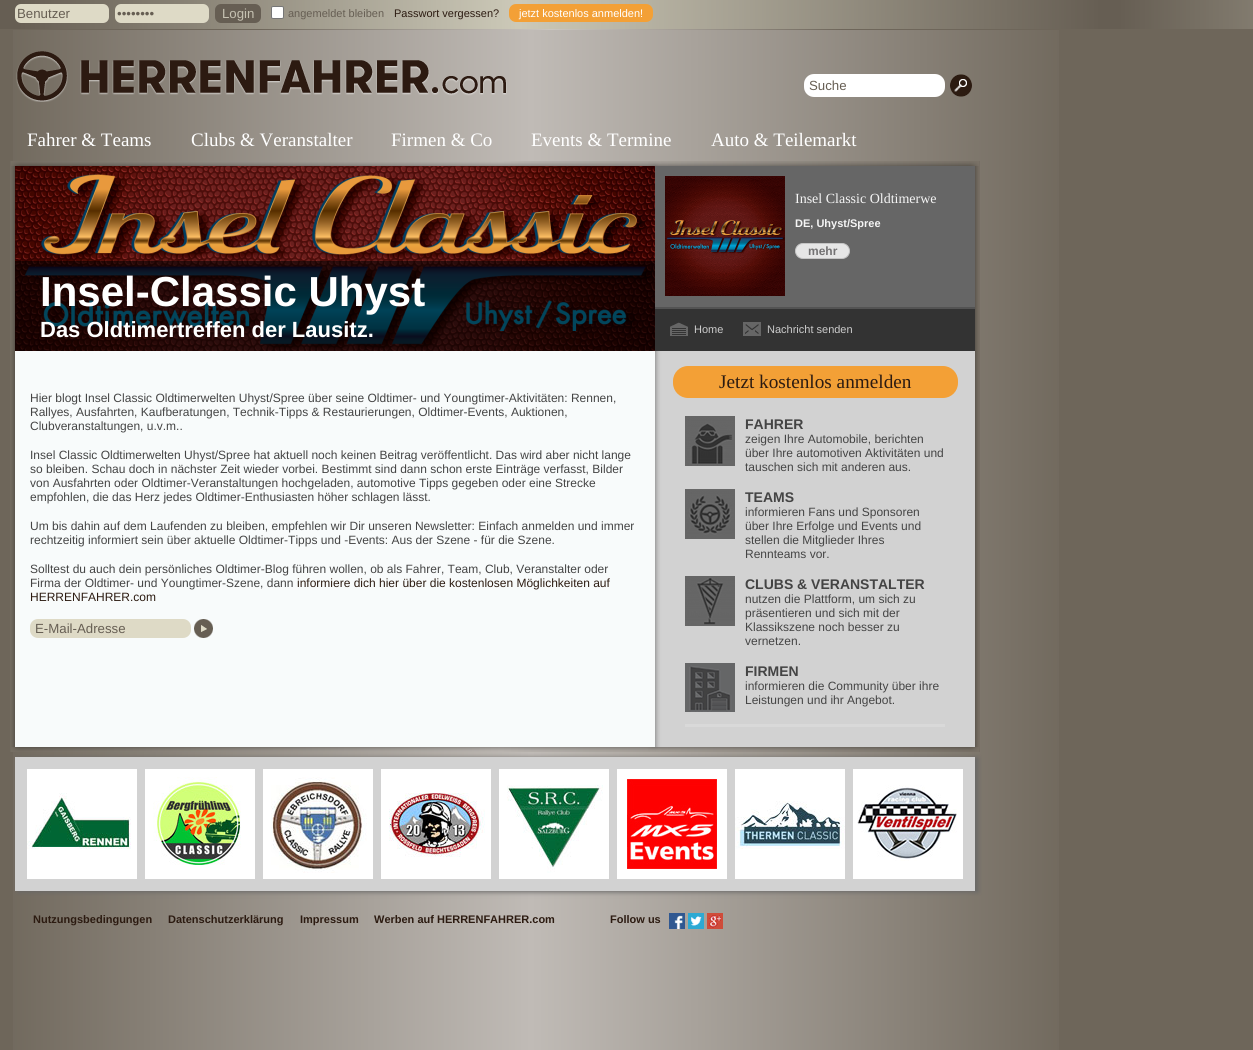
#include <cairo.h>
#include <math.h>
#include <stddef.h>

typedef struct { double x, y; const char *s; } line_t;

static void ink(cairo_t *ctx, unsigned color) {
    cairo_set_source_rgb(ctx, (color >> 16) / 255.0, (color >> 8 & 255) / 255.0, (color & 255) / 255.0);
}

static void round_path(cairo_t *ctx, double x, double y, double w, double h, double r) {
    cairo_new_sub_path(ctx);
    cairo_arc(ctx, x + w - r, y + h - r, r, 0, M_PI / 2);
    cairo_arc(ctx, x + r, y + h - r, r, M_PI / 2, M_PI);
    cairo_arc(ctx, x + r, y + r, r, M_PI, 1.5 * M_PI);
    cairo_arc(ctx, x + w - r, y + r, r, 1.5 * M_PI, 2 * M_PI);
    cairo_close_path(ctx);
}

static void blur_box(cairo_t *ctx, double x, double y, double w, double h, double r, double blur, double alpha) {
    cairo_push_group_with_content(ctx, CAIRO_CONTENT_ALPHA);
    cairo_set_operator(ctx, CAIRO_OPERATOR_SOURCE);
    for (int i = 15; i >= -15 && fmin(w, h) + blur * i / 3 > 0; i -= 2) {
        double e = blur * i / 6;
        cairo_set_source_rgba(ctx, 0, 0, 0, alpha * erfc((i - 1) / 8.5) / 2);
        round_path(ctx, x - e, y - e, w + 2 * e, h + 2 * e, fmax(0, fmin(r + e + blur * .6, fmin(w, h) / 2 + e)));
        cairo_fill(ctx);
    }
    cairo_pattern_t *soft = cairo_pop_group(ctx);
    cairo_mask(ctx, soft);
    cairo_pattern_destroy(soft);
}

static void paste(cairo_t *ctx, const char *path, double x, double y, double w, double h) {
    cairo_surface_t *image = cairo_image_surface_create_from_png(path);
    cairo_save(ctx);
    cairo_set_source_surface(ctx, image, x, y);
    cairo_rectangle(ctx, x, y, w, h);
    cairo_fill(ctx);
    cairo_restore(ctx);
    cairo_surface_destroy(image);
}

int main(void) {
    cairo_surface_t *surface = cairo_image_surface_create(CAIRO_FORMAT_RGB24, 1253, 1050);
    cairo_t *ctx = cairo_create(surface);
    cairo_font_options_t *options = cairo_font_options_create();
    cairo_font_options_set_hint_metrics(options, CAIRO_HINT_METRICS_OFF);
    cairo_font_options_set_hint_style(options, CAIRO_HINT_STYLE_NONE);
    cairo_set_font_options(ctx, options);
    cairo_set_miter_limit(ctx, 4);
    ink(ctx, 0x6E665A);
    cairo_paint(ctx);
    paste(ctx, "media/1.png", 13, 30, 1046, 1020);
    paste(ctx, "media/2.png", 0, 0, 1253, 30);
    ink(ctx, 0xDEDAC6);
    round_path(ctx, 15, 4, 94, 19, 6);
    cairo_fill(ctx);
    cairo_select_font_face(ctx, "Liberation Sans", CAIRO_FONT_SLANT_NORMAL, CAIRO_FONT_WEIGHT_NORMAL);
    cairo_set_font_size(ctx, 13.25);
    ink(ctx, 0x665E53);
    cairo_move_to(ctx, 17, 18);
    cairo_show_text(ctx, "Benutzer");
    ink(ctx, 0xDEDAC6);
    round_path(ctx, 115, 4, 94, 19, 6);
    cairo_fill(ctx);
    ink(ctx, 0x665E53);
    cairo_move_to(ctx, 117, 18);
    cairo_show_text(ctx, "••••••••");
    round_path(ctx, 215, 4, 46, 19, 6);
    cairo_fill(ctx);
    ink(ctx, 0xC6C2B2);
    cairo_move_to(ctx, 222, 18);
    cairo_show_text(ctx, "Login");
    ink(ctx, 0xFFFFFF);
    round_path(ctx, 271.5, 6.5, 12, 12, 1.5);
    cairo_fill_preserve(ctx);
    ink(ctx, 0x767676);
    cairo_set_line_width(ctx, 1);
    cairo_stroke(ctx);
    cairo_set_font_size(ctx, 11);
    ink(ctx, 0x665E53);
    cairo_move_to(ctx, 288, 17);
    cairo_show_text(ctx, "angemeldet bleiben");
    ink(ctx, 0x2C1B11);
    cairo_move_to(ctx, 394, 17);
    cairo_show_text(ctx, "Passwort vergessen?");
    ink(ctx, 0xF3A036);
    round_path(ctx, 509, 4, 144, 18, 7);
    cairo_fill(ctx);
    ink(ctx, 0xFFFFFF);
    cairo_move_to(ctx, 519, 17);
    cairo_show_text(ctx, "jetzt kostenlos anmelden!");
    paste(ctx, "media/3.png", 16, 51, 491, 51);
    round_path(ctx, 804, 74, 141, 23, 10);
    cairo_fill(ctx);
    cairo_set_font_size(ctx, 13.25);
    ink(ctx, 0x665E53);
    cairo_move_to(ctx, 809, 90);
    cairo_show_text(ctx, "Suche");
    paste(ctx, "media/4.png", 950, 74, 22, 23);
    cairo_select_font_face(ctx, "Liberation Serif", CAIRO_FONT_SLANT_NORMAL, CAIRO_FONT_WEIGHT_NORMAL);
    cairo_set_font_size(ctx, 19);
    ink(ctx, 0xFFFFFF);
    {
        static const line_t items[] = {
            {27, 146, "Fahrer & Teams"},
            {191, 146, "Clubs & Veranstalter"},
            {391, 146, "Firmen & Co"},
            {531, 146, "Events & Termine"},
            {711, 146, "Auto & Teilemarkt"},
        };
        for (size_t i = 0; i < sizeof items / sizeof *items; i++) {
            cairo_move_to(ctx, items[i].x, items[i].y);
            cairo_show_text(ctx, items[i].s);
        }
    }
    paste(ctx, "media/5.png", 10, 161, 970, 591);
    paste(ctx, "media/6.png", 11, 161, 968, 5);
    ink(ctx, 0x666666);
    cairo_rectangle(ctx, 655, 166, 320, 141);
    cairo_fill(ctx);
    paste(ctx, "media/7.png", 15, 166, 640, 185);
    cairo_set_source_rgba(ctx, 0, 0, 0, 0.6);
    cairo_rectangle(ctx, 15, 261, 640, 90);
    cairo_fill(ctx);
    cairo_select_font_face(ctx, "Liberation Sans", CAIRO_FONT_SLANT_NORMAL, CAIRO_FONT_WEIGHT_BOLD);
    cairo_set_font_size(ctx, 42);
    ink(ctx, 0xFFFFFF);
    cairo_move_to(ctx, 40, 306);
    cairo_show_text(ctx, "Insel-Classic Uhyst");
    cairo_set_font_size(ctx, 22);
    cairo_move_to(ctx, 40, 337);
    cairo_show_text(ctx, "Das Oldtimertreffen der Lausitz.");
    paste(ctx, "media/8.png", 665, 176, 120, 120);
    cairo_select_font_face(ctx, "Liberation Serif", CAIRO_FONT_SLANT_NORMAL, CAIRO_FONT_WEIGHT_NORMAL);
    cairo_set_font_size(ctx, 14);
    ink(ctx, 0xF5F5F5);
    cairo_move_to(ctx, 795, 203);
    cairo_show_text(ctx, "Insel Classic Oldtimerwe");
    cairo_select_font_face(ctx, "Liberation Sans", CAIRO_FONT_SLANT_NORMAL, CAIRO_FONT_WEIGHT_BOLD);
    cairo_set_font_size(ctx, 11);
    cairo_move_to(ctx, 795, 227);
    cairo_show_text(ctx, "DE, Uhyst/Spree");
    ink(ctx, 0xE6E6E6);
    round_path(ctx, 795.5, 243.5, 54, 15, 7.5);
    cairo_fill_preserve(ctx);
    ink(ctx, 0xC5C5C5);
    cairo_stroke(ctx);
    cairo_set_font_size(ctx, 12);
    ink(ctx, 0x737273);
    cairo_move_to(ctx, 808, 255);
    cairo_show_text(ctx, "mehr");
    ink(ctx, 0x333333);
    cairo_rectangle(ctx, 655, 309, 320, 42);
    cairo_fill(ctx);
    ink(ctx, 0x535353);
    cairo_rectangle(ctx, 655, 307, 320, 2);
    cairo_fill(ctx);
    paste(ctx, "media/9.png", 670, 322, 18, 14);
    cairo_select_font_face(ctx, "Liberation Sans", CAIRO_FONT_SLANT_NORMAL, CAIRO_FONT_WEIGHT_NORMAL);
    cairo_set_font_size(ctx, 11);
    ink(ctx, 0xCCCCCC);
    cairo_move_to(ctx, 694, 333);
    cairo_show_text(ctx, "Home");
    paste(ctx, "media/10.png", 743, 322, 18, 14);
    cairo_move_to(ctx, 767, 333);
    cairo_show_text(ctx, "Nachricht senden");
    cairo_set_font_size(ctx, 12);
    ink(ctx, 0x444444);
    {
        static const line_t items[] = {
            {30, 402, "Hier blogt Insel Classic Oldtimerwelten Uhyst/Spree über seine Oldtimer- und Youngtimer-Aktivitäten: Rennen,"},
            {30, 416, "Rallyes, Ausfahrten, Kaufberatungen, Technik-Tipps & Restaurierungen, Oldtimer-Events, Auktionen,"},
            {30, 430, "Clubveranstaltungen, u.v.m.."},
            {30, 459, "Insel Classic Oldtimerwelten Uhyst/Spree hat aktuell noch keinen Beitrag veröffentlicht. Das wird aber nicht lange"},
            {30, 473, "so bleiben. Schau doch in nächster Zeit wieder vorbei. Bestimmt sind dann schon erste Einträge verfasst, Bilder"},
            {30, 487, "von Ausfahrten oder Oldtimer-Veranstaltungen hochgeladen, automotive Tipps gegeben oder eine Strecke"},
            {30, 501, "empfohlen, die das Herz jedes Oldtimer-Enthusiasten höher schlagen lässt."},
            {30, 530, "Um bis dahin auf dem Laufenden zu bleiben, empfehlen wir Dir unseren Newsletter: Einfach anmelden und immer"},
            {30, 544, "rechtzeitig informiert sein über aktuelle Oldtimer-Tipps und -Events: Aus der Szene - für die Szene."},
            {30, 573, "Solltest du auch dein persönliches Oldtimer-Blog führen wollen, ob als Fahrer, Team, Club, Veranstalter oder"},
            {30, 587, "Firma der Oldtimer- und Youngtimer-Szene, dann"},
        };
        for (size_t i = 0; i < sizeof items / sizeof *items; i++) {
            cairo_move_to(ctx, items[i].x, items[i].y);
            cairo_show_text(ctx, items[i].s);
        }
    }
    ink(ctx, 0x2C1B11);
    cairo_move_to(ctx, 297, 587);
    cairo_show_text(ctx, "informiere dich hier über die kostenlosen Möglichkeiten auf");
    cairo_move_to(ctx, 30, 601);
    cairo_show_text(ctx, "HERRENFAHRER.com");
    ink(ctx, 0xDEDAC6);
    round_path(ctx, 30, 619, 161, 19, 8);
    cairo_fill(ctx);
    cairo_set_font_size(ctx, 13.25);
    ink(ctx, 0x665E53);
    cairo_move_to(ctx, 35, 633);
    cairo_show_text(ctx, "E-Mail-Adresse");
    paste(ctx, "media/11.png", 194, 619, 19, 19);
    ink(ctx, 0xF3A036);
    round_path(ctx, 673, 366, 285, 32, 15);
    cairo_fill(ctx);
    cairo_select_font_face(ctx, "Liberation Serif", CAIRO_FONT_SLANT_NORMAL, CAIRO_FONT_WEIGHT_NORMAL);
    cairo_set_font_size(ctx, 19.25);
    ink(ctx, 0x2C1B11);
    cairo_move_to(ctx, 719, 388);
    cairo_show_text(ctx, "Jetzt kostenlos anmelden");
    ink(ctx, 0xD9D9D9);
    cairo_rectangle(ctx, 685, 724, 260, 3);
    cairo_fill(ctx);
    paste(ctx, "media/12.png", 685, 416, 50, 50);
    cairo_select_font_face(ctx, "Liberation Sans", CAIRO_FONT_SLANT_NORMAL, CAIRO_FONT_WEIGHT_BOLD);
    cairo_set_font_size(ctx, 14);
    ink(ctx, 0x444444);
    cairo_move_to(ctx, 745, 429);
    cairo_show_text(ctx, "FAHRER");
    cairo_select_font_face(ctx, "Liberation Sans", CAIRO_FONT_SLANT_NORMAL, CAIRO_FONT_WEIGHT_NORMAL);
    cairo_set_font_size(ctx, 12);
    {
        static const line_t items[] = {
            {745, 443, "zeigen Ihre Automobile, berichten"},
            {745, 457, "über Ihre automotiven Aktivitäten und"},
            {745, 471, "tauschen sich mit anderen aus."},
        };
        for (size_t i = 0; i < sizeof items / sizeof *items; i++) {
            cairo_move_to(ctx, items[i].x, items[i].y);
            cairo_show_text(ctx, items[i].s);
        }
    }
    paste(ctx, "media/13.png", 685, 489, 50, 50);
    cairo_select_font_face(ctx, "Liberation Sans", CAIRO_FONT_SLANT_NORMAL, CAIRO_FONT_WEIGHT_BOLD);
    cairo_set_font_size(ctx, 14);
    cairo_move_to(ctx, 745, 502);
    cairo_show_text(ctx, "TEAMS");
    cairo_select_font_face(ctx, "Liberation Sans", CAIRO_FONT_SLANT_NORMAL, CAIRO_FONT_WEIGHT_NORMAL);
    cairo_set_font_size(ctx, 12);
    {
        static const line_t items[] = {
            {745, 516, "informieren Fans und Sponsoren"},
            {745, 530, "über Ihre Erfolge und Events und"},
            {745, 544, "stellen die Mitglieder Ihres"},
            {745, 558, "Rennteams vor."},
        };
        for (size_t i = 0; i < sizeof items / sizeof *items; i++) {
            cairo_move_to(ctx, items[i].x, items[i].y);
            cairo_show_text(ctx, items[i].s);
        }
    }
    paste(ctx, "media/14.png", 685, 576, 50, 50);
    cairo_select_font_face(ctx, "Liberation Sans", CAIRO_FONT_SLANT_NORMAL, CAIRO_FONT_WEIGHT_BOLD);
    cairo_set_font_size(ctx, 14);
    cairo_move_to(ctx, 745, 589);
    cairo_show_text(ctx, "CLUBS & VERANSTALTER");
    cairo_select_font_face(ctx, "Liberation Sans", CAIRO_FONT_SLANT_NORMAL, CAIRO_FONT_WEIGHT_NORMAL);
    cairo_set_font_size(ctx, 12);
    {
        static const line_t items[] = {
            {745, 603, "nutzen die Plattform, um sich zu"},
            {745, 617, "präsentieren und sich mit der"},
            {745, 631, "Klassikszene noch besser zu"},
            {745, 645, "vernetzen."},
        };
        for (size_t i = 0; i < sizeof items / sizeof *items; i++) {
            cairo_move_to(ctx, items[i].x, items[i].y);
            cairo_show_text(ctx, items[i].s);
        }
    }
    paste(ctx, "media/15.png", 685, 663, 50, 49);
    cairo_select_font_face(ctx, "Liberation Sans", CAIRO_FONT_SLANT_NORMAL, CAIRO_FONT_WEIGHT_BOLD);
    cairo_set_font_size(ctx, 14);
    cairo_move_to(ctx, 745, 676);
    cairo_show_text(ctx, "FIRMEN");
    cairo_select_font_face(ctx, "Liberation Sans", CAIRO_FONT_SLANT_NORMAL, CAIRO_FONT_WEIGHT_NORMAL);
    cairo_set_font_size(ctx, 12);
    cairo_move_to(ctx, 745, 690);
    cairo_show_text(ctx, "informieren die Community über ihre");
    cairo_move_to(ctx, 745, 704);
    cairo_show_text(ctx, "Leistungen und ihr Angebot.");
    paste(ctx, "media/16.png", 11, 747, 968, 5);
    ink(ctx, 0x666666);
    blur_box(ctx, 18, 758, 960, 134, 0, 2.5, 1);
    ink(ctx, 0xD2D2D2);
    cairo_rectangle(ctx, 15, 757, 960, 134);
    cairo_fill(ctx);
    ink(ctx, 0xFFFFFF);
    cairo_rectangle(ctx, 27, 769, 110, 110);
    cairo_fill(ctx);
    paste(ctx, "media/17.png", 27, 793, 104, 56);
    cairo_rectangle(ctx, 145, 769, 110, 110);
    cairo_fill(ctx);
    paste(ctx, "media/18.png", 153, 777, 88, 88);
    cairo_rectangle(ctx, 263, 769, 110, 110);
    cairo_fill(ctx);
    paste(ctx, "media/19.png", 271, 777, 96, 96);
    cairo_rectangle(ctx, 381, 769, 110, 110);
    cairo_fill(ctx);
    paste(ctx, "media/20.png", 389, 793, 96, 64);
    cairo_rectangle(ctx, 499, 769, 110, 110);
    cairo_fill(ctx);
    paste(ctx, "media/21.png", 507, 785, 96, 88);
    cairo_rectangle(ctx, 617, 769, 110, 110);
    cairo_fill(ctx);
    paste(ctx, "media/22.png", 627, 779, 90, 90);
    cairo_rectangle(ctx, 735, 769, 110, 110);
    cairo_fill(ctx);
    paste(ctx, "media/23.png", 735, 801, 110, 48);
    cairo_rectangle(ctx, 853, 769, 110, 110);
    cairo_fill(ctx);
    paste(ctx, "media/24.png", 857, 785, 100, 76);
    cairo_select_font_face(ctx, "Liberation Sans", CAIRO_FONT_SLANT_NORMAL, CAIRO_FONT_WEIGHT_BOLD);
    cairo_set_font_size(ctx, 11);
    ink(ctx, 0x2C1B11);
    {
        static const line_t items[] = {
            {33, 923, "Nutzungsbedingungen"},
            {168, 923, "Datenschutzerklärung"},
            {300, 923, "Impressum"},
            {374, 923, "Werben auf HERRENFAHRER.com"},
            {610, 923, "Follow us"},
        };
        for (size_t i = 0; i < sizeof items / sizeof *items; i++) {
            cairo_move_to(ctx, items[i].x, items[i].y);
            cairo_show_text(ctx, items[i].s);
        }
    }
    paste(ctx, "media/25.png", 669, 913, 16, 16);
    paste(ctx, "media/26.png", 688, 913, 16, 16);
    paste(ctx, "media/27.png", 707, 913, 16, 16);
    cairo_surface_write_to_png(surface, "image.png");
    cairo_font_options_destroy(options);
    cairo_destroy(ctx);
    cairo_surface_destroy(surface);
    return 0;
}
